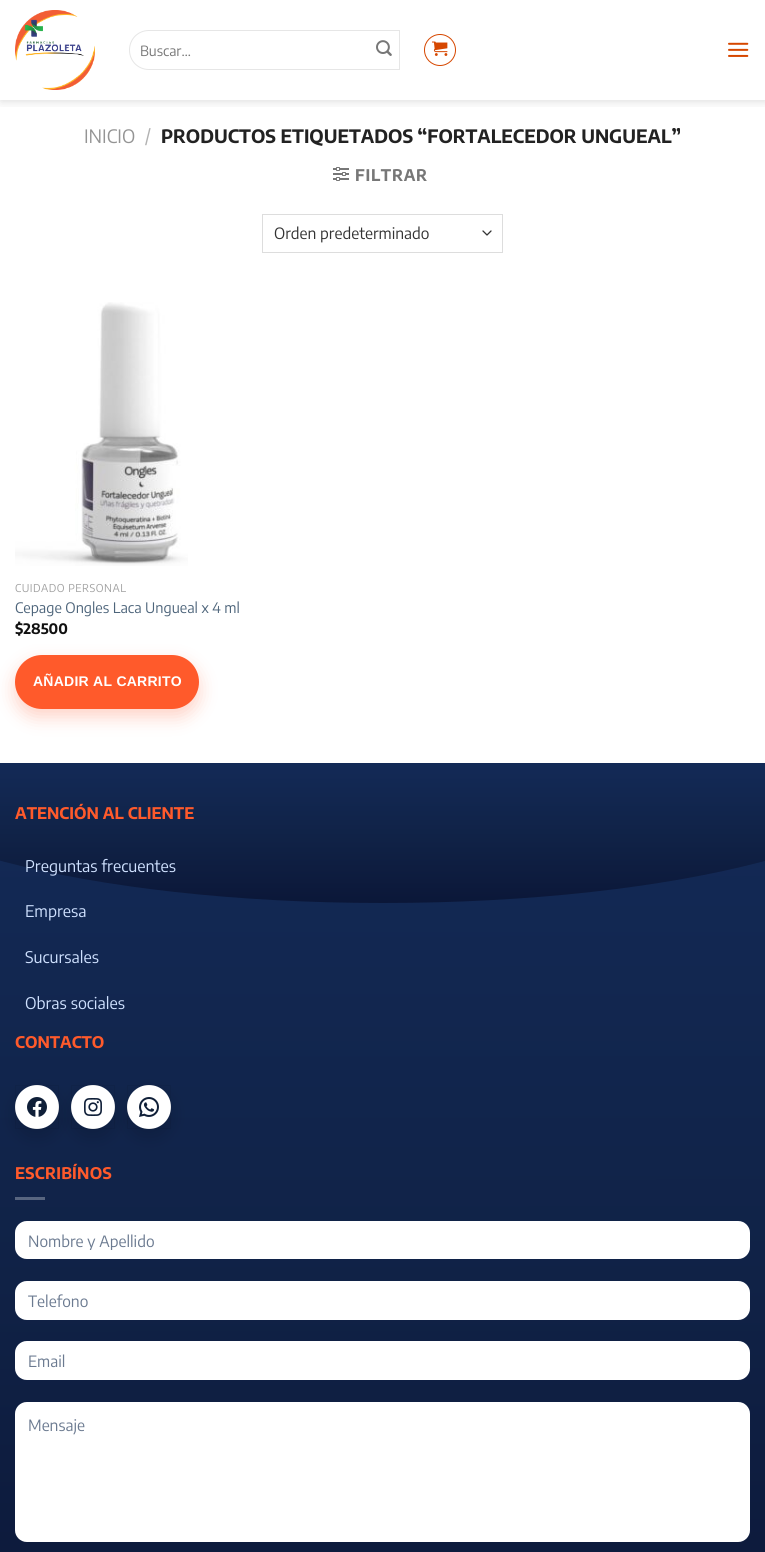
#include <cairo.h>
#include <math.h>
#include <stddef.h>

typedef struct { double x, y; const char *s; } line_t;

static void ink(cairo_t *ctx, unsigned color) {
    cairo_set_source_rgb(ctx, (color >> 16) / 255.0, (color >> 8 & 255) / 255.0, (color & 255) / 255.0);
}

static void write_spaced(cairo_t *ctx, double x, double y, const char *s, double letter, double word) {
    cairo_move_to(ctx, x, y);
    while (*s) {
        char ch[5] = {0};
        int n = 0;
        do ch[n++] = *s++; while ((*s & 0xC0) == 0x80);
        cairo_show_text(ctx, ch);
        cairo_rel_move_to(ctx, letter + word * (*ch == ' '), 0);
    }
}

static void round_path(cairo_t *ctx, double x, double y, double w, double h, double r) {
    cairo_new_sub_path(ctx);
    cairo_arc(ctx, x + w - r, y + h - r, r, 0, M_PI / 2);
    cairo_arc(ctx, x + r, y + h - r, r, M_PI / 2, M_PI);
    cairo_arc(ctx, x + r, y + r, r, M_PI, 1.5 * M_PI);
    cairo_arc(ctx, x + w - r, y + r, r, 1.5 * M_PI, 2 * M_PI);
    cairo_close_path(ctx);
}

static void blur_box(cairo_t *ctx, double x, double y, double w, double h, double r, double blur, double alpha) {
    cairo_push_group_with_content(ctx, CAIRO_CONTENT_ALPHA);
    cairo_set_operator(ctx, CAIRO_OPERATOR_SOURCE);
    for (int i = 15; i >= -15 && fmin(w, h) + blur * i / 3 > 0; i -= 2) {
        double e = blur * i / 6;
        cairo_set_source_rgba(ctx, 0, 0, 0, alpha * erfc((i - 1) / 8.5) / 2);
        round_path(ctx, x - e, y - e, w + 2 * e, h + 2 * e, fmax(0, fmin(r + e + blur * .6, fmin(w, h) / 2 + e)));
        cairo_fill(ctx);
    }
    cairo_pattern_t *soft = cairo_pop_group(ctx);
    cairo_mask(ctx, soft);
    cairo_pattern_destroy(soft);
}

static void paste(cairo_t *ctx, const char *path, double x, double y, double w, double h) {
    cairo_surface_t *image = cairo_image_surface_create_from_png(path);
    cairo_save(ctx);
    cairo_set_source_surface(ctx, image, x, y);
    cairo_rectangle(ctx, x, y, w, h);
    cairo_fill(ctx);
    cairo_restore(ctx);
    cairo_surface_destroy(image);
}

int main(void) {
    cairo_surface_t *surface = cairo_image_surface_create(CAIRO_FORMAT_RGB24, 765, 1552);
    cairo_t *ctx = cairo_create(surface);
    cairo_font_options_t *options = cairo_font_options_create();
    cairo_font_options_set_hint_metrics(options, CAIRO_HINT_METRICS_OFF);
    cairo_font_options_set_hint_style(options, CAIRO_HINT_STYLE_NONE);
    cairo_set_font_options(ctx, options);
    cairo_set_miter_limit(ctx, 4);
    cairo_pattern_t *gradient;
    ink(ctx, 0xFFFFFF);
    cairo_paint(ctx);
    cairo_save(ctx);
    cairo_rectangle(ctx, 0, 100, 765, 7);
    cairo_clip(ctx);
    ink(ctx, 0x000000);
    blur_box(ctx, 1, 1, 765, 100, 0, 5, 0.15);
    cairo_restore(ctx);
    paste(ctx, "media/1.png", 15, 10, 80, 80);
    cairo_new_path(ctx);
    cairo_move_to(ctx, 149, 30.5);
    cairo_line_to(ctx, 399.5, 30.5);
    cairo_line_to(ctx, 399.5, 69.5);
    cairo_line_to(ctx, 149, 69.5);
    cairo_curve_to(ctx, 138, 69.5, 129.5, 61, 129.5, 50);
    cairo_curve_to(ctx, 129.5, 39, 138, 30.5, 149, 30.5);
    cairo_close_path(ctx);
    ink(ctx, 0xE6E6E6);
    cairo_set_line_width(ctx, 1);
    cairo_stroke(ctx);
    cairo_select_font_face(ctx, "Encode Sans Condensed", CAIRO_FONT_SLANT_NORMAL, CAIRO_FONT_WEIGHT_NORMAL);
    cairo_set_font_size(ctx, 14);
    ink(ctx, 0x777777);
    cairo_move_to(ctx, 140, 56);
    cairo_show_text(ctx, "Buscar…");
    paste(ctx, "media/2.png", 376, 40, 16, 16);
    cairo_arc(ctx, 440, 50, 15.5, 0, 2 * M_PI);
    ink(ctx, 0xD64700);
    cairo_stroke(ctx);
    paste(ctx, "media/3.png", 432, 41, 16, 15);
    paste(ctx, "media/4.png", 728, 42, 21, 15);
    cairo_set_font_size(ctx, 18.4);
    ink(ctx, 0x949494);
    cairo_move_to(ctx, 84, 143);
    cairo_show_text(ctx, "INICIO");
    ink(ctx, 0xB2B2B2);
    cairo_move_to(ctx, 145, 143);
    cairo_show_text(ctx, "/");
    cairo_select_font_face(ctx, "Encode Sans Condensed", CAIRO_FONT_SLANT_NORMAL, CAIRO_FONT_WEIGHT_BOLD);
    ink(ctx, 0x222222);
    cairo_move_to(ctx, 161, 143);
    cairo_show_text(ctx, "PRODUCTOS ETIQUETADOS “FORTALECEDOR UNGUEAL”");
    paste(ctx, "media/5.png", 333, 167, 16, 14);
    cairo_set_font_size(ctx, 16);
    ink(ctx, 0x777777);
    write_spaced(ctx, 355, 181, "FILTRAR", 0.75, 0);
    cairo_new_path(ctx);
    cairo_move_to(ctx, 483, 231);
    cairo_line_to(ctx, 487, 235);
    cairo_line_to(ctx, 491, 231);
    ink(ctx, 0x333333);
    cairo_set_line_width(ctx, 1.3);
    cairo_set_line_cap(ctx, CAIRO_LINE_CAP_ROUND);
    cairo_set_line_join(ctx, CAIRO_LINE_JOIN_ROUND);
    cairo_stroke(ctx);
    cairo_rectangle(ctx, 262.5, 214.5, 240, 38);
    ink(ctx, 0xDDDDDD);
    cairo_set_line_width(ctx, 1);
    cairo_set_line_cap(ctx, CAIRO_LINE_CAP_BUTT);
    cairo_set_line_join(ctx, CAIRO_LINE_JOIN_MITER);
    cairo_stroke(ctx);
    cairo_select_font_face(ctx, "Encode Sans Condensed", CAIRO_FONT_SLANT_NORMAL, CAIRO_FONT_WEIGHT_NORMAL);
    cairo_set_font_size(ctx, 15.5);
    ink(ctx, 0x333333);
    cairo_move_to(ctx, 274, 239);
    cairo_show_text(ctx, "Orden predeterminado");
    paste(ctx, "media/6.png", 15, 302, 173, 264);
    cairo_set_font_size(ctx, 10.75);
    ink(ctx, 0xA0A0A0);
    write_spaced(ctx, 15, 592, "CUIDADO PERSONAL", 0.5, 0);
    cairo_set_font_size(ctx, 14.4);
    ink(ctx, 0x4E657B);
    cairo_move_to(ctx, 15, 613);
    cairo_show_text(ctx, "Cepage Ongles Laca Ungueal x 4 ml");
    cairo_select_font_face(ctx, "Encode Sans Condensed", CAIRO_FONT_SLANT_NORMAL, CAIRO_FONT_WEIGHT_BOLD);
    ink(ctx, 0x111111);
    cairo_move_to(ctx, 15, 634);
    cairo_show_text(ctx, "$28500");
    ink(ctx, 0xFF5F36);
    blur_box(ctx, 15, 663, 184, 54, 27, 9, 0.28);
    ink(ctx, 0xFF5A2B);
    round_path(ctx, 15, 655, 184, 54, 27);
    cairo_fill(ctx);
    cairo_select_font_face(ctx, "Liberation Sans", CAIRO_FONT_SLANT_NORMAL, CAIRO_FONT_WEIGHT_BOLD);
    cairo_set_font_size(ctx, 14);
    ink(ctx, 0xFFFFFF);
    write_spaced(ctx, 33, 686, "AÑADIR AL CARRITO", 0.25, 0);
    gradient = cairo_pattern_create_linear(382, 773, 383, 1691);
    cairo_pattern_add_color_stop_rgba(gradient, 0, 0.075, 0.165, 0.341, 1);
    cairo_pattern_add_color_stop_rgba(gradient, 0.55, 0.063, 0.133, 0.275, 1);
    cairo_pattern_add_color_stop_rgba(gradient, 1, 0.043, 0.09, 0.22, 1);
    cairo_set_source(ctx, gradient);
    cairo_pattern_destroy(gradient);
    cairo_rectangle(ctx, 0, 860, 765, 692);
    cairo_fill(ctx);
    gradient = cairo_pattern_create_linear(383, 763, 383, 903);
    cairo_pattern_add_color_stop_rgba(gradient, 0, 0.075, 0.165, 0.341, 1);
    cairo_pattern_add_color_stop_rgba(gradient, 0.55, 0.063, 0.133, 0.275, 1);
    cairo_pattern_add_color_stop_rgba(gradient, 1, 0.043, 0.09, 0.22, 1);
    cairo_set_source(ctx, gradient);
    cairo_pattern_destroy(gradient);
    cairo_new_path(ctx);
    cairo_move_to(ctx, -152, 763);
    cairo_line_to(ctx, 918, 763);
    cairo_curve_to(ctx, 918, 840, 679, 903, 383, 903);
    cairo_curve_to(ctx, 87, 903, -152, 840, -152, 763);
    cairo_close_path(ctx);
    cairo_fill(ctx);
    cairo_select_font_face(ctx, "Encode Sans Condensed", CAIRO_FONT_SLANT_NORMAL, CAIRO_FONT_WEIGHT_BOLD);
    cairo_set_font_size(ctx, 16);
    ink(ctx, 0xFF5A2B);
    cairo_move_to(ctx, 15, 819);
    cairo_show_text(ctx, "ATENCIÓN AL CLIENTE");
    cairo_select_font_face(ctx, "Encode Sans Condensed", CAIRO_FONT_SLANT_NORMAL, CAIRO_FONT_WEIGHT_NORMAL);
    ink(ctx, 0xCFE1FF);
    {
        static const line_t items[] = {
            {25, 872, "Preguntas frecuentes"},
            {25, 917, "Empresa"},
            {25, 963, "Sucursales"},
            {25, 1009, "Obras sociales"},
        };
        for (size_t i = 0; i < sizeof items / sizeof *items; i++) {
            cairo_move_to(ctx, items[i].x, items[i].y);
            cairo_show_text(ctx, items[i].s);
        }
    }
    cairo_select_font_face(ctx, "Encode Sans Condensed", CAIRO_FONT_SLANT_NORMAL, CAIRO_FONT_WEIGHT_BOLD);
    ink(ctx, 0xFF5A2B);
    cairo_move_to(ctx, 15, 1048);
    cairo_show_text(ctx, "CONTACTO");
    ink(ctx, 0x000000);
    blur_box(ctx, 15, 1093, 44, 44, 22, 9, 0.15);
    ink(ctx, 0xFFFFFF);
    cairo_arc(ctx, 37, 1107, 22, 0, 2 * M_PI);
    cairo_fill(ctx);
    cairo_rectangle(ctx, 15.5, 1085.5, 43, 43);
    cairo_set_source_rgba(ctx, 0, 0, 0, 0.06);
    cairo_stroke(ctx);
    ink(ctx, 0x000000);
    blur_box(ctx, 71, 1093, 44, 44, 22, 9, 0.15);
    paste(ctx, "media/7.png", 27, 1097, 20, 20);
    ink(ctx, 0xFFFFFF);
    cairo_arc(ctx, 93, 1107, 22, 0, 2 * M_PI);
    cairo_fill(ctx);
    cairo_rectangle(ctx, 71.5, 1085.5, 43, 43);
    cairo_set_source_rgba(ctx, 0, 0, 0, 0.06);
    cairo_stroke(ctx);
    ink(ctx, 0x000000);
    blur_box(ctx, 127, 1093, 44, 44, 22, 9, 0.15);
    paste(ctx, "media/8.png", 84, 1098, 18, 18);
    ink(ctx, 0xFFFFFF);
    cairo_arc(ctx, 149, 1107, 22, 0, 2 * M_PI);
    cairo_fill(ctx);
    cairo_rectangle(ctx, 127.5, 1085.5, 43, 43);
    cairo_set_source_rgba(ctx, 0, 0, 0, 0.06);
    cairo_stroke(ctx);
    paste(ctx, "media/9.png", 139, 1097, 20, 20);
    ink(ctx, 0xFF5A2B);
    write_spaced(ctx, 15, 1179, "ESCRIBÍNOS", 0.25, 0);
    ink(ctx, 0x586580);
    cairo_rectangle(ctx, 15, 1197, 30, 3);
    cairo_fill(ctx);
    ink(ctx, 0xFFFFFF);
    round_path(ctx, 15, 1221, 735, 38, 12);
    cairo_fill(ctx);
    round_path(ctx, 15.5, 1221.5, 734, 37, 11.5);
    cairo_set_source_rgba(ctx, 1, 1, 1, 0.2);
    cairo_stroke(ctx);
    cairo_save(ctx);
    cairo_rectangle(ctx, 28, 1231, 709, 19);
    cairo_clip(ctx);
    cairo_select_font_face(ctx, "Encode Sans Condensed", CAIRO_FONT_SLANT_NORMAL, CAIRO_FONT_WEIGHT_NORMAL);
    cairo_set_font_size(ctx, 15.5);
    ink(ctx, 0x6B7A90);
    cairo_move_to(ctx, 28, 1247);
    cairo_show_text(ctx, "Nombre y Apellido");
    cairo_restore(ctx);
    ink(ctx, 0xFFFFFF);
    round_path(ctx, 15, 1281, 735, 39, 12);
    cairo_fill(ctx);
    round_path(ctx, 15.5, 1281.5, 734, 38, 11.5);
    cairo_set_source_rgba(ctx, 1, 1, 1, 0.2);
    cairo_stroke(ctx);
    cairo_select_font_face(ctx, "Encode Sans Condensed", CAIRO_FONT_SLANT_NORMAL, CAIRO_FONT_WEIGHT_NORMAL);
    cairo_set_font_size(ctx, 15.5);
    ink(ctx, 0x6B7A90);
    cairo_move_to(ctx, 28, 1307);
    cairo_show_text(ctx, "Telefono");
    ink(ctx, 0xFFFFFF);
    round_path(ctx, 15, 1341, 735, 39, 12);
    cairo_fill(ctx);
    round_path(ctx, 15.5, 1341.5, 734, 38, 11.5);
    cairo_set_source_rgba(ctx, 1, 1, 1, 0.2);
    cairo_stroke(ctx);
    ink(ctx, 0x6B7A90);
    cairo_move_to(ctx, 28, 1367);
    cairo_show_text(ctx, "Email");
    ink(ctx, 0xFFFFFF);
    round_path(ctx, 15, 1402, 735, 140, 12);
    cairo_fill(ctx);
    round_path(ctx, 15.5, 1402.5, 734, 139, 11.5);
    cairo_set_source_rgba(ctx, 1, 1, 1, 0.2);
    cairo_stroke(ctx);
    ink(ctx, 0x6B7A90);
    cairo_move_to(ctx, 28, 1431);
    cairo_show_text(ctx, "Mensaje");
    cairo_surface_write_to_png(surface, "image.png");
    cairo_font_options_destroy(options);
    cairo_destroy(ctx);
    cairo_surface_destroy(surface);
    return 0;
}
